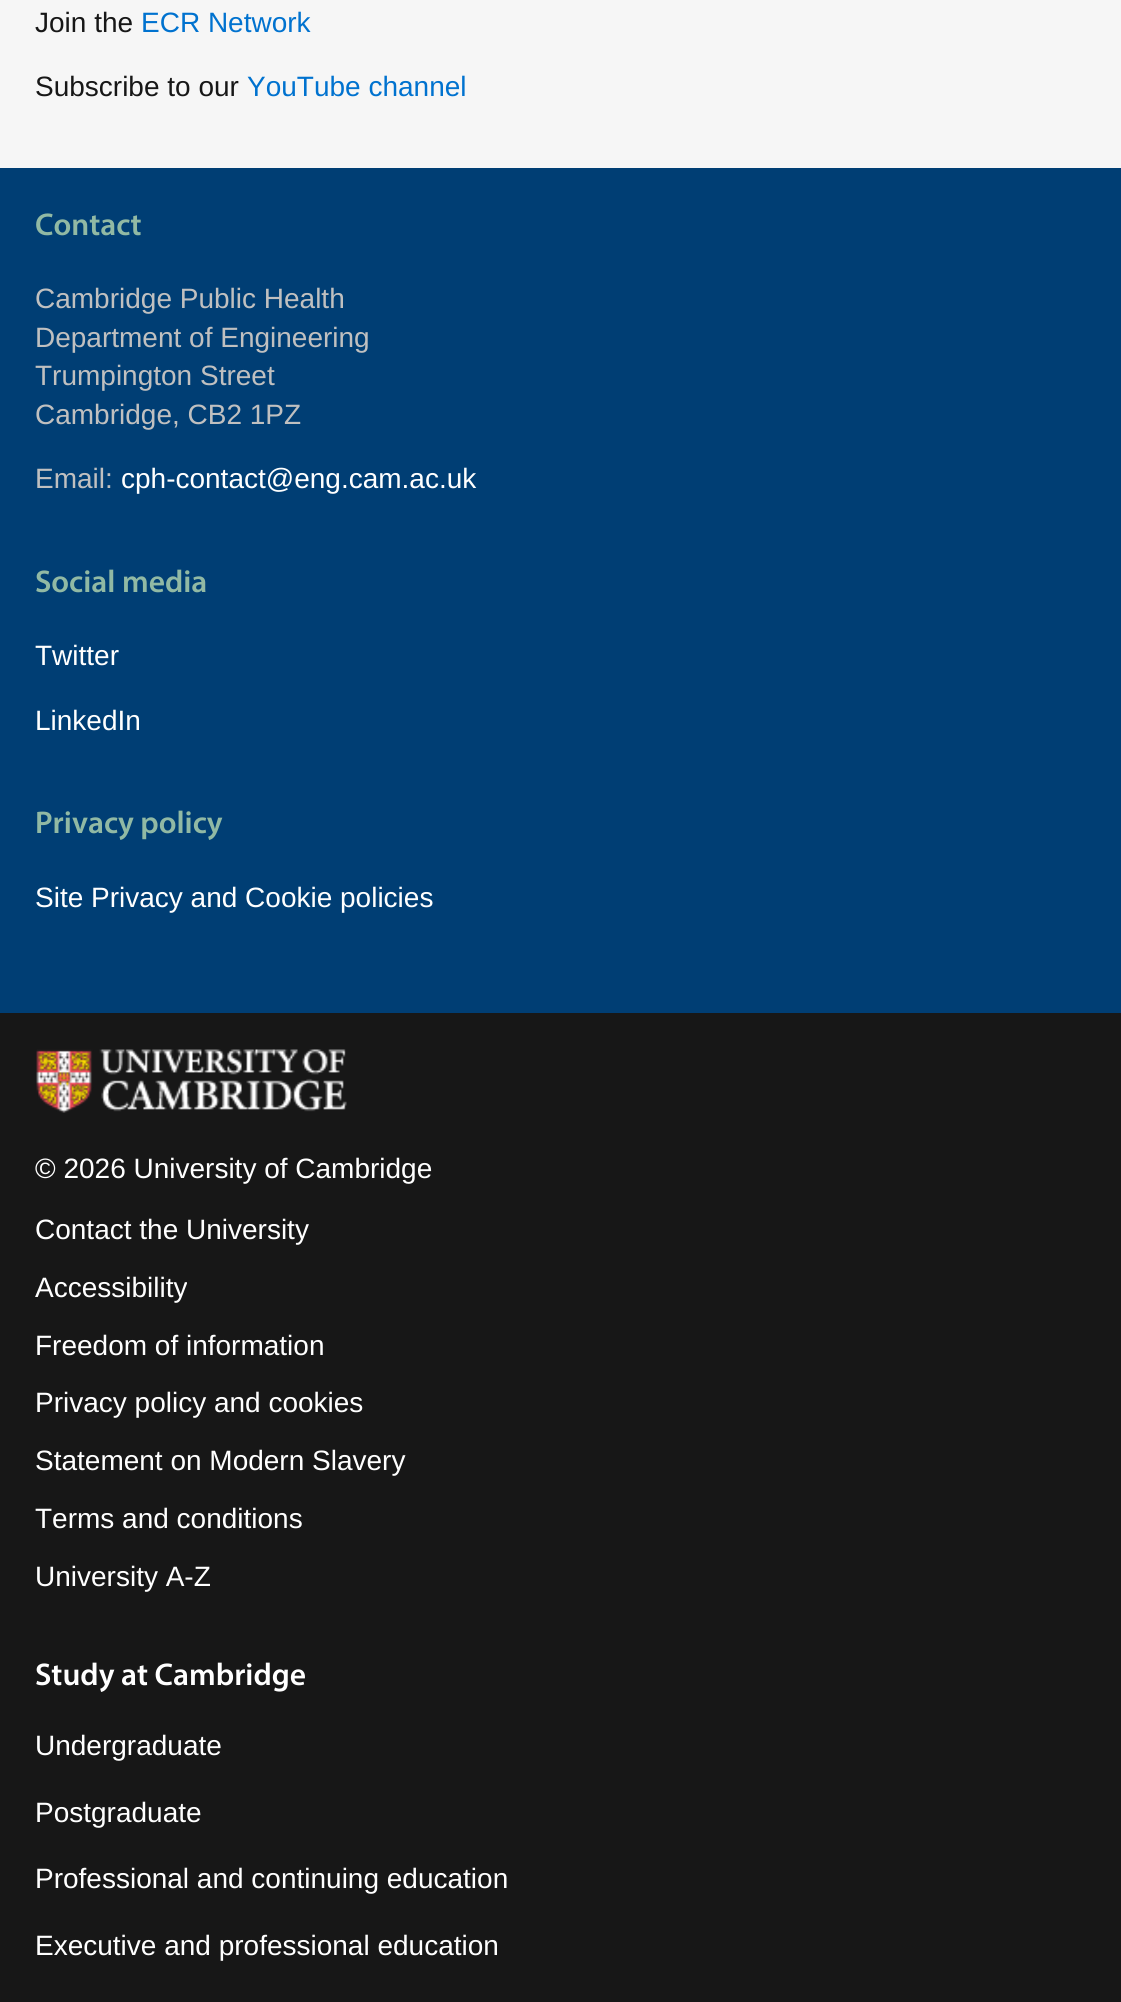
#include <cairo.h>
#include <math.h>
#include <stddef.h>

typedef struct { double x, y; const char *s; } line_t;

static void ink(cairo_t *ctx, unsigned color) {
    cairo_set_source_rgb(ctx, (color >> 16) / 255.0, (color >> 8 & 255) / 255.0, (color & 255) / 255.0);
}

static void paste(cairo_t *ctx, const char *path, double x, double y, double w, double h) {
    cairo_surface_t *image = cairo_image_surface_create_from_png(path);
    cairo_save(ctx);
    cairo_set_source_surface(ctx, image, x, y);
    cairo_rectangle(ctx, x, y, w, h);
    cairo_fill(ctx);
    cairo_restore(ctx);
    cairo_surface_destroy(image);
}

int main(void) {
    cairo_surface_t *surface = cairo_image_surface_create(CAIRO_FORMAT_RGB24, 1121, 2002);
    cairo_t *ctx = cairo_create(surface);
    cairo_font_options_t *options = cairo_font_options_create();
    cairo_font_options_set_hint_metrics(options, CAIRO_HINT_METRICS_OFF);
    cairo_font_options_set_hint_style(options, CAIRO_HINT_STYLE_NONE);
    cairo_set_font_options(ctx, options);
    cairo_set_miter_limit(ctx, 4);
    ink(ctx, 0x003E74);
    cairo_paint(ctx);
    ink(ctx, 0xF6F6F6);
    cairo_rectangle(ctx, 0, 0, 1121, 168);
    cairo_fill(ctx);
    cairo_select_font_face(ctx, "Liberation Sans", CAIRO_FONT_SLANT_NORMAL, CAIRO_FONT_WEIGHT_NORMAL);
    cairo_set_font_size(ctx, 28);
    ink(ctx, 0x171717);
    cairo_move_to(ctx, 35, 32);
    cairo_show_text(ctx, "Join the");
    ink(ctx, 0x0072CF);
    cairo_move_to(ctx, 141, 32);
    cairo_show_text(ctx, "ECR Network");
    ink(ctx, 0x171717);
    cairo_move_to(ctx, 35, 96);
    cairo_show_text(ctx, "Subscribe to our");
    ink(ctx, 0x0072CF);
    cairo_move_to(ctx, 247, 96);
    cairo_show_text(ctx, "YouTube channel");
    cairo_select_font_face(ctx, "Myriad SemiBold", CAIRO_FONT_SLANT_NORMAL, CAIRO_FONT_WEIGHT_NORMAL);
    cairo_set_font_size(ctx, 31.5);
    ink(ctx, 0x91B9A4);
    cairo_move_to(ctx, 35, 235);
    cairo_show_text(ctx, "Contact");
    cairo_select_font_face(ctx, "Liberation Sans", CAIRO_FONT_SLANT_NORMAL, CAIRO_FONT_WEIGHT_NORMAL);
    cairo_set_font_size(ctx, 28);
    ink(ctx, 0xC0C0C0);
    {
        static const line_t items[] = {
            {35, 308, "Cambridge Public Health"},
            {35, 347, "Department of Engineering"},
            {35, 385, "Trumpington Street"},
            {35, 424, "Cambridge, CB2 1PZ"},
            {35, 488, "Email:"},
        };
        for (size_t i = 0; i < sizeof items / sizeof *items; i++) {
            cairo_move_to(ctx, items[i].x, items[i].y);
            cairo_show_text(ctx, items[i].s);
        }
    }
    ink(ctx, 0xFFFFFF);
    cairo_move_to(ctx, 121, 488);
    cairo_show_text(ctx, "cph-contact@eng.cam.ac.uk");
    cairo_select_font_face(ctx, "Myriad SemiBold", CAIRO_FONT_SLANT_NORMAL, CAIRO_FONT_WEIGHT_NORMAL);
    cairo_set_font_size(ctx, 31.5);
    ink(ctx, 0x91B9A4);
    cairo_move_to(ctx, 35, 592);
    cairo_show_text(ctx, "Social media");
    cairo_select_font_face(ctx, "Liberation Sans", CAIRO_FONT_SLANT_NORMAL, CAIRO_FONT_WEIGHT_NORMAL);
    cairo_set_font_size(ctx, 28);
    ink(ctx, 0xFFFFFF);
    cairo_move_to(ctx, 35, 665);
    cairo_show_text(ctx, "Twitter");
    cairo_move_to(ctx, 35, 730);
    cairo_show_text(ctx, "LinkedIn");
    cairo_select_font_face(ctx, "Myriad SemiBold", CAIRO_FONT_SLANT_NORMAL, CAIRO_FONT_WEIGHT_NORMAL);
    cairo_set_font_size(ctx, 31.5);
    ink(ctx, 0x91B9A4);
    cairo_move_to(ctx, 35, 833);
    cairo_show_text(ctx, "Privacy policy");
    cairo_select_font_face(ctx, "Liberation Sans", CAIRO_FONT_SLANT_NORMAL, CAIRO_FONT_WEIGHT_NORMAL);
    cairo_set_font_size(ctx, 28);
    ink(ctx, 0xFFFFFF);
    cairo_move_to(ctx, 35, 907);
    cairo_show_text(ctx, "Site Privacy and Cookie policies");
    ink(ctx, 0x171717);
    cairo_rectangle(ctx, 0, 1013, 1121, 989);
    cairo_fill(ctx);
    paste(ctx, "media/1.png", 36, 1049, 311, 64);
    ink(ctx, 0xFFFFFF);
    {
        static const line_t items[] = {
            {35, 1178, "© 2026 University of Cambridge"},
            {35, 1239, "Contact the University"},
            {35, 1297, "Accessibility"},
            {35, 1355, "Freedom of information"},
            {35, 1412, "Privacy policy and cookies"},
            {35, 1470, "Statement on Modern Slavery"},
            {35, 1528, "Terms and conditions"},
            {35, 1586, "University A-Z"},
        };
        for (size_t i = 0; i < sizeof items / sizeof *items; i++) {
            cairo_move_to(ctx, items[i].x, items[i].y);
            cairo_show_text(ctx, items[i].s);
        }
    }
    cairo_select_font_face(ctx, "Myriad SemiBold", CAIRO_FONT_SLANT_NORMAL, CAIRO_FONT_WEIGHT_NORMAL);
    cairo_set_font_size(ctx, 31.5);
    cairo_move_to(ctx, 35, 1685);
    cairo_show_text(ctx, "Study at Cambridge");
    cairo_select_font_face(ctx, "Liberation Sans", CAIRO_FONT_SLANT_NORMAL, CAIRO_FONT_WEIGHT_NORMAL);
    cairo_set_font_size(ctx, 28);
    {
        static const line_t items[] = {
            {35, 1755, "Undergraduate"},
            {35, 1822, "Postgraduate"},
            {35, 1888, "Professional and continuing education"},
            {35, 1955, "Executive and professional education"},
        };
        for (size_t i = 0; i < sizeof items / sizeof *items; i++) {
            cairo_move_to(ctx, items[i].x, items[i].y);
            cairo_show_text(ctx, items[i].s);
        }
    }
    cairo_surface_write_to_png(surface, "image.png");
    cairo_font_options_destroy(options);
    cairo_destroy(ctx);
    cairo_surface_destroy(surface);
    return 0;
}
